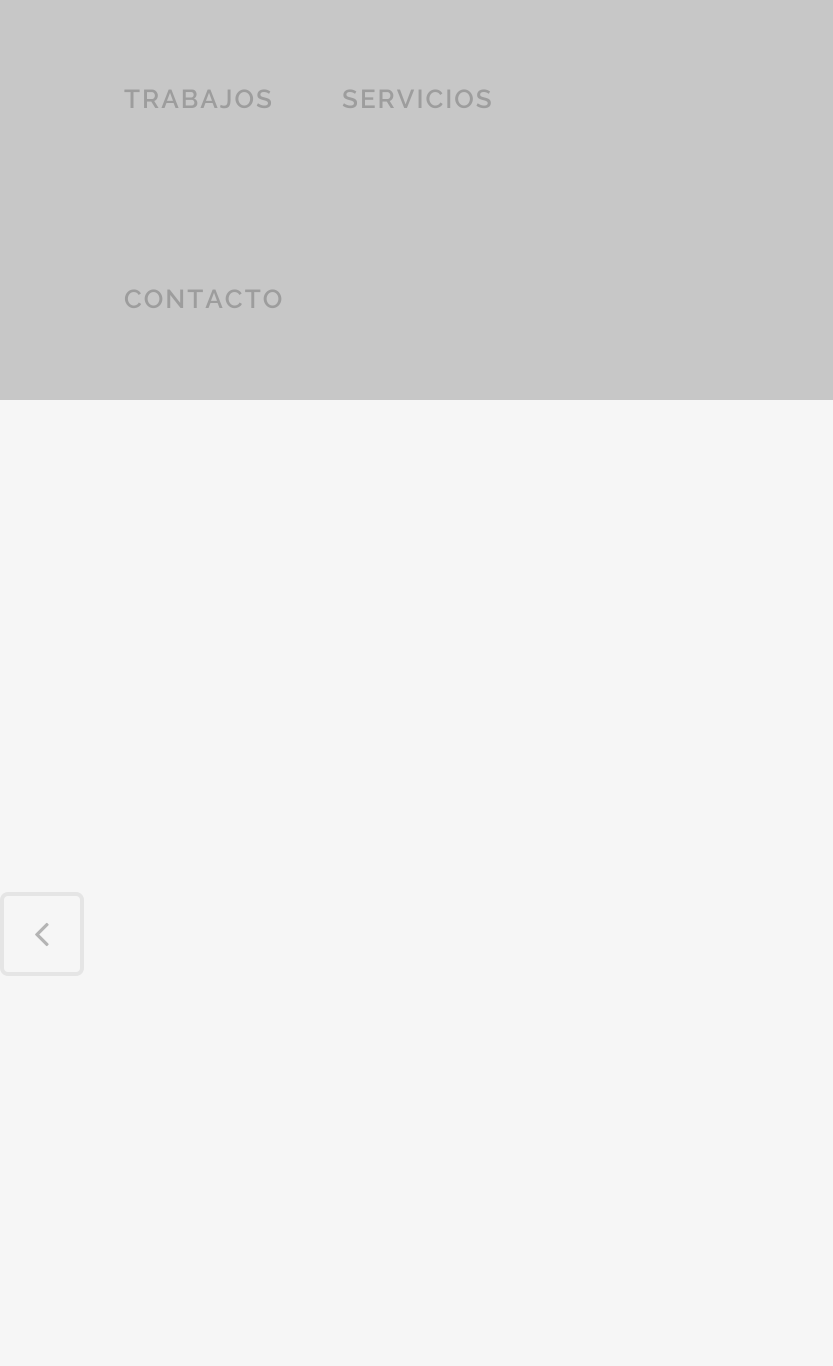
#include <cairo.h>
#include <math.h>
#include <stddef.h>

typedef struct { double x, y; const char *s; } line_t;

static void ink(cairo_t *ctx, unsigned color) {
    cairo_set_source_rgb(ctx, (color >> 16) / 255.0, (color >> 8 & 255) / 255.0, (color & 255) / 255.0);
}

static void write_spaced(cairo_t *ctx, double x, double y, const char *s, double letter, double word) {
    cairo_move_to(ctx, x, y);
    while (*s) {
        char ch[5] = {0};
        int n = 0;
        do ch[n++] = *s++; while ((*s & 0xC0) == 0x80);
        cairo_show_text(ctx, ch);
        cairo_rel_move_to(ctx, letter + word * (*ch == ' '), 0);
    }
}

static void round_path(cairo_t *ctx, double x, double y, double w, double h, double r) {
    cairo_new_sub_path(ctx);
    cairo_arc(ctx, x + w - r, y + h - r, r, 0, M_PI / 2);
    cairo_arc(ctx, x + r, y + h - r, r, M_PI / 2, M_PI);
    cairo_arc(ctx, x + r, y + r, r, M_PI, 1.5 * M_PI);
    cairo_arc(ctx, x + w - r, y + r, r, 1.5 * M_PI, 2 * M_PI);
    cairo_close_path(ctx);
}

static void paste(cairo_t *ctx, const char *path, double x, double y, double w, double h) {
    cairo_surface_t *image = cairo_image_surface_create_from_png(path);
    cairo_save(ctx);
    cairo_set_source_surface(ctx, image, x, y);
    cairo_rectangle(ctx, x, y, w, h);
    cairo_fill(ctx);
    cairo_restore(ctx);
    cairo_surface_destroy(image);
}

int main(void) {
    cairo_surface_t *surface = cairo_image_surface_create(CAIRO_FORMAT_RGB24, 833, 1366);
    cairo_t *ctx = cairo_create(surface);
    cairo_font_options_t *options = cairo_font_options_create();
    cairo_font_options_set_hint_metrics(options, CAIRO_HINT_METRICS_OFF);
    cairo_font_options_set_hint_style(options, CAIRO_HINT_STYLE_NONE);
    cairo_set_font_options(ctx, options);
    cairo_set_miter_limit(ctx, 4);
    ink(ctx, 0xF6F6F6);
    cairo_paint(ctx);
    ink(ctx, 0xC7C7C7);
    cairo_rectangle(ctx, 0, 0, 833, 400);
    cairo_fill(ctx);
    cairo_select_font_face(ctx, "Raleway SemiBold", CAIRO_FONT_SLANT_NORMAL, CAIRO_FONT_WEIGHT_NORMAL);
    cairo_set_font_size(ctx, 26);
    ink(ctx, 0x9D9D9D);
    {
        static const line_t items[] = {
            {124, 108, "TRABAJOS"},
            {342, 108, "SERVICIOS"},
            {124, 308, "CONTACTO"},
        };
        for (size_t i = 0; i < sizeof items / sizeof *items; i++) {
            write_spaced(ctx, items[i].x, items[i].y, items[i].s, 2, 0);
        }
    }
    round_path(ctx, 2, 894, 80, 80, 6);
    ink(ctx, 0xE5E5E5);
    cairo_set_line_width(ctx, 4);
    cairo_stroke(ctx);
    paste(ctx, "media/1.png", 35, 922, 14, 25);
    cairo_surface_write_to_png(surface, "image.png");
    cairo_font_options_destroy(options);
    cairo_destroy(ctx);
    cairo_surface_destroy(surface);
    return 0;
}
